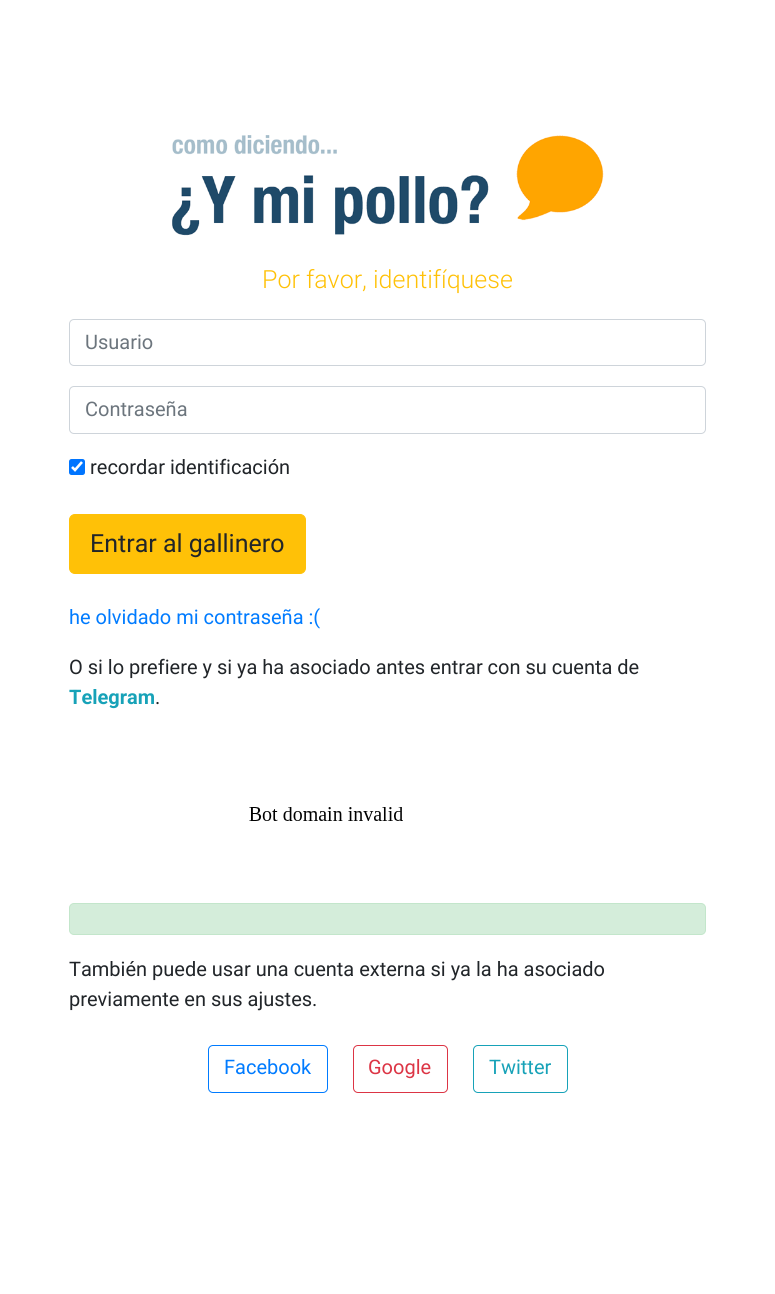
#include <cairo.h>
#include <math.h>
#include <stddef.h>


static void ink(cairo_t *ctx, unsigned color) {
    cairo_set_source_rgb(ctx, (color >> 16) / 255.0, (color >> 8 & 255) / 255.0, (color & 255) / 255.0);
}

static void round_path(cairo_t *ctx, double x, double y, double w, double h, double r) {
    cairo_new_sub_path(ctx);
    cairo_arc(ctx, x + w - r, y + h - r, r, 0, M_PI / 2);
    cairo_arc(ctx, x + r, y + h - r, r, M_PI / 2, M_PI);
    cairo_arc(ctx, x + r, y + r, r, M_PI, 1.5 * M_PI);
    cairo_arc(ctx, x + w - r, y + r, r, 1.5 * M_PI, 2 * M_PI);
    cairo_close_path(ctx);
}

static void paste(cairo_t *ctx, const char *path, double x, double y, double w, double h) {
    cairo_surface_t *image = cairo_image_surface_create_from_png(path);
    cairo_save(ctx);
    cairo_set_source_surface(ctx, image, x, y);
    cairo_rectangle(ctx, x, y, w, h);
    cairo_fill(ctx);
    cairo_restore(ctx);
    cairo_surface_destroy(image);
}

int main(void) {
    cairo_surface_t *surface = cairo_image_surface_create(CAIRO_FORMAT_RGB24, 775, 1294);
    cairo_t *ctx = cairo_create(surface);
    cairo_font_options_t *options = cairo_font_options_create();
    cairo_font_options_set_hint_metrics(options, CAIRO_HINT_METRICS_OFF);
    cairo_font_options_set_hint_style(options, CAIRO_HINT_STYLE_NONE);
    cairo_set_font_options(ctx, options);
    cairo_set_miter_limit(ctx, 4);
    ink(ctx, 0xFFFFFF);
    cairo_paint(ctx);
    paste(ctx, "media/1.png", 172, 135, 432, 101);
    cairo_select_font_face(ctx, "Roboto Light", CAIRO_FONT_SLANT_NORMAL, CAIRO_FONT_WEIGHT_NORMAL);
    cairo_set_font_size(ctx, 25);
    ink(ctx, 0xFFC107);
    cairo_move_to(ctx, 262, 288);
    cairo_show_text(ctx, "Por favor, identifíquese");
    round_path(ctx, 69.5, 319.5, 636, 46, 4.5);
    ink(ctx, 0xCED4DA);
    cairo_set_line_width(ctx, 1);
    cairo_stroke(ctx);
    cairo_select_font_face(ctx, "Roboto", CAIRO_FONT_SLANT_NORMAL, CAIRO_FONT_WEIGHT_NORMAL);
    cairo_set_font_size(ctx, 20);
    ink(ctx, 0x6C757D);
    cairo_move_to(ctx, 85, 349);
    cairo_show_text(ctx, "Usuario");
    round_path(ctx, 69.5, 386.5, 636, 47, 4.5);
    ink(ctx, 0xCED4DA);
    cairo_stroke(ctx);
    ink(ctx, 0x6C757D);
    cairo_move_to(ctx, 85, 416);
    cairo_show_text(ctx, "Contraseña");
    ink(ctx, 0x0075FF);
    round_path(ctx, 69, 459, 16, 16, 2.5);
    cairo_fill(ctx);
    cairo_new_path(ctx);
    cairo_move_to(ctx, 72, 467);
    cairo_line_to(ctx, 75, 470);
    cairo_line_to(ctx, 82, 462);
    ink(ctx, 0xFFFFFF);
    cairo_set_line_width(ctx, 2.6);
    cairo_stroke(ctx);
    ink(ctx, 0x212529);
    cairo_move_to(ctx, 90, 474);
    cairo_show_text(ctx, "recordar identificación");
    ink(ctx, 0xFFC107);
    round_path(ctx, 69.5, 514.5, 236, 59, 5.5);
    cairo_fill_preserve(ctx);
    cairo_set_line_width(ctx, 1);
    cairo_stroke(ctx);
    cairo_set_font_size(ctx, 25);
    ink(ctx, 0x212529);
    cairo_move_to(ctx, 90, 552);
    cairo_show_text(ctx, "Entrar al gallinero");
    cairo_set_font_size(ctx, 20);
    ink(ctx, 0x007BFF);
    cairo_move_to(ctx, 69, 624);
    cairo_show_text(ctx, "he olvidado mi contraseña :(");
    ink(ctx, 0x212529);
    cairo_move_to(ctx, 69, 674);
    cairo_show_text(ctx, "O si lo prefiere y si ya ha asociado antes entrar con su cuenta de");
    cairo_select_font_face(ctx, "Roboto", CAIRO_FONT_SLANT_NORMAL, CAIRO_FONT_WEIGHT_BOLD);
    ink(ctx, 0x17A2B8);
    cairo_move_to(ctx, 69, 704);
    cairo_show_text(ctx, "Telegram");
    cairo_select_font_face(ctx, "Roboto", CAIRO_FONT_SLANT_NORMAL, CAIRO_FONT_WEIGHT_NORMAL);
    ink(ctx, 0x212529);
    cairo_move_to(ctx, 155, 704);
    cairo_show_text(ctx, ".");
    paste(ctx, "media/2.png", 249, 807, 154, 14);
    ink(ctx, 0xD4EDDA);
    round_path(ctx, 69.5, 903.5, 636, 31, 4.5);
    cairo_fill_preserve(ctx);
    ink(ctx, 0xC3E6CB);
    cairo_stroke(ctx);
    ink(ctx, 0x212529);
    cairo_move_to(ctx, 69, 976);
    cairo_show_text(ctx, "También puede usar una cuenta externa si ya la ha asociado");
    cairo_move_to(ctx, 69, 1006);
    cairo_show_text(ctx, "previamente en sus ajustes.");
    round_path(ctx, 208.5, 1045.5, 119, 47, 4.5);
    ink(ctx, 0x007BFF);
    cairo_stroke(ctx);
    cairo_move_to(ctx, 224, 1074);
    cairo_show_text(ctx, "Facebook");
    round_path(ctx, 353.5, 1045.5, 94, 47, 4.5);
    ink(ctx, 0xDC3545);
    cairo_stroke(ctx);
    cairo_move_to(ctx, 368, 1074);
    cairo_show_text(ctx, "Google");
    round_path(ctx, 473.5, 1045.5, 94, 47, 4.5);
    ink(ctx, 0x17A2B8);
    cairo_stroke(ctx);
    cairo_move_to(ctx, 489, 1074);
    cairo_show_text(ctx, "Twitter");
    cairo_surface_write_to_png(surface, "image.png");
    cairo_font_options_destroy(options);
    cairo_destroy(ctx);
    cairo_surface_destroy(surface);
    return 0;
}
